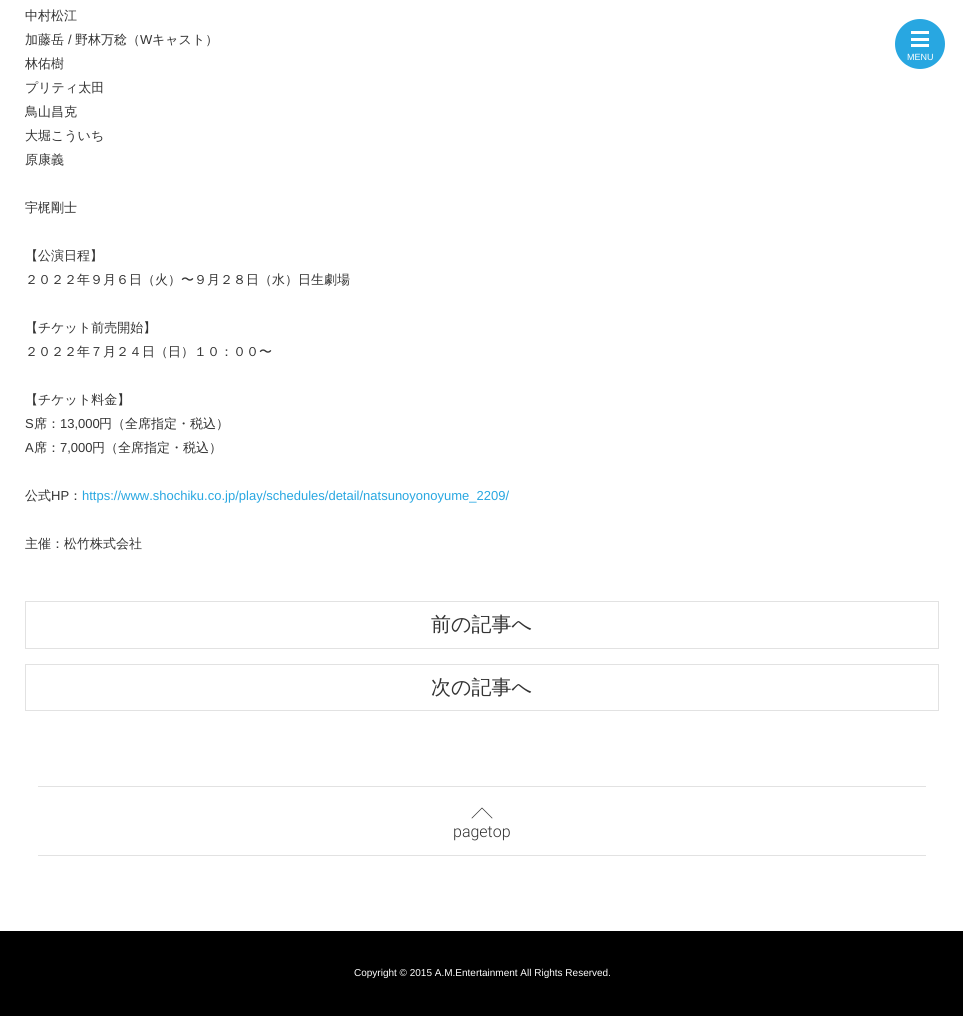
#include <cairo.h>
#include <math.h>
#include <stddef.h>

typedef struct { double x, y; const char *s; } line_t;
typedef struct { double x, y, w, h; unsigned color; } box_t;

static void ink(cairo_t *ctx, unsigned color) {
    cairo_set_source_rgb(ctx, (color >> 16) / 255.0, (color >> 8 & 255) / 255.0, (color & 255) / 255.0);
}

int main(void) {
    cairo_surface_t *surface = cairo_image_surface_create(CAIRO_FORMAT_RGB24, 963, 1016);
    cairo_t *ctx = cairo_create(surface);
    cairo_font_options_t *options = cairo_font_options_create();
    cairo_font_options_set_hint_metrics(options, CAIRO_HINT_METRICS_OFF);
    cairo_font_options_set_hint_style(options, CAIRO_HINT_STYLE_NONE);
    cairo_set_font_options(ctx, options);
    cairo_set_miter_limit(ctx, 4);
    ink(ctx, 0xFFFFFF);
    cairo_paint(ctx);
    cairo_select_font_face(ctx, "WenQuanYi Zen Hei Medium", CAIRO_FONT_SLANT_NORMAL, CAIRO_FONT_WEIGHT_NORMAL);
    cairo_set_font_size(ctx, 13);
    ink(ctx, 0x333333);
    cairo_move_to(ctx, 25, 20);
    cairo_show_text(ctx, "中村松江");
    cairo_move_to(ctx, 25, 44);
    cairo_show_text(ctx, "加藤岳");
    cairo_select_font_face(ctx, "Liberation Sans", CAIRO_FONT_SLANT_NORMAL, CAIRO_FONT_WEIGHT_NORMAL);
    cairo_move_to(ctx, 68, 44);
    cairo_show_text(ctx, "/");
    cairo_select_font_face(ctx, "WenQuanYi Zen Hei Medium", CAIRO_FONT_SLANT_NORMAL, CAIRO_FONT_WEIGHT_NORMAL);
    cairo_move_to(ctx, 75, 44);
    cairo_show_text(ctx, "野林万稔（");
    cairo_select_font_face(ctx, "Liberation Sans", CAIRO_FONT_SLANT_NORMAL, CAIRO_FONT_WEIGHT_NORMAL);
    cairo_move_to(ctx, 140, 44);
    cairo_show_text(ctx, "W");
    cairo_select_font_face(ctx, "WenQuanYi Zen Hei Medium", CAIRO_FONT_SLANT_NORMAL, CAIRO_FONT_WEIGHT_NORMAL);
    {
        static const line_t items[] = {
            {152, 44, "キャスト）"},
            {25, 68, "林佑樹"},
            {25, 92, "プリティ太田"},
            {25, 116, "鳥山昌克"},
            {25, 140, "大堀こういち"},
            {25, 164, "原康義"},
            {25, 212, "宇梶剛士"},
            {25, 260, "【公演日程】"},
            {25, 284, "２０２２年９月６日（火）〜９月２８日（水）日生劇場"},
            {25, 332, "【チケット前売開始】"},
            {25, 356, "２０２２年７月２４日（日）１０：００〜"},
            {25, 404, "【チケット料金】"},
        };
        for (size_t i = 0; i < sizeof items / sizeof *items; i++) {
            cairo_move_to(ctx, items[i].x, items[i].y);
            cairo_show_text(ctx, items[i].s);
        }
    }
    cairo_select_font_face(ctx, "Liberation Sans", CAIRO_FONT_SLANT_NORMAL, CAIRO_FONT_WEIGHT_NORMAL);
    cairo_move_to(ctx, 25, 428);
    cairo_show_text(ctx, "S");
    cairo_select_font_face(ctx, "WenQuanYi Zen Hei Medium", CAIRO_FONT_SLANT_NORMAL, CAIRO_FONT_WEIGHT_NORMAL);
    cairo_move_to(ctx, 34, 428);
    cairo_show_text(ctx, "席：");
    cairo_select_font_face(ctx, "Liberation Sans", CAIRO_FONT_SLANT_NORMAL, CAIRO_FONT_WEIGHT_NORMAL);
    cairo_move_to(ctx, 60, 428);
    cairo_show_text(ctx, "13,000");
    cairo_select_font_face(ctx, "WenQuanYi Zen Hei Medium", CAIRO_FONT_SLANT_NORMAL, CAIRO_FONT_WEIGHT_NORMAL);
    cairo_move_to(ctx, 99, 428);
    cairo_show_text(ctx, "円（全席指定・税込）");
    cairo_select_font_face(ctx, "Liberation Sans", CAIRO_FONT_SLANT_NORMAL, CAIRO_FONT_WEIGHT_NORMAL);
    cairo_move_to(ctx, 25, 452);
    cairo_show_text(ctx, "A");
    cairo_select_font_face(ctx, "WenQuanYi Zen Hei Medium", CAIRO_FONT_SLANT_NORMAL, CAIRO_FONT_WEIGHT_NORMAL);
    cairo_move_to(ctx, 34, 452);
    cairo_show_text(ctx, "席：");
    cairo_select_font_face(ctx, "Liberation Sans", CAIRO_FONT_SLANT_NORMAL, CAIRO_FONT_WEIGHT_NORMAL);
    cairo_move_to(ctx, 60, 452);
    cairo_show_text(ctx, "7,000");
    cairo_select_font_face(ctx, "WenQuanYi Zen Hei Medium", CAIRO_FONT_SLANT_NORMAL, CAIRO_FONT_WEIGHT_NORMAL);
    cairo_move_to(ctx, 92, 452);
    cairo_show_text(ctx, "円（全席指定・税込）");
    cairo_move_to(ctx, 25, 500);
    cairo_show_text(ctx, "公式");
    cairo_select_font_face(ctx, "Liberation Sans", CAIRO_FONT_SLANT_NORMAL, CAIRO_FONT_WEIGHT_NORMAL);
    cairo_move_to(ctx, 51, 500);
    cairo_show_text(ctx, "HP");
    cairo_select_font_face(ctx, "WenQuanYi Zen Hei Medium", CAIRO_FONT_SLANT_NORMAL, CAIRO_FONT_WEIGHT_NORMAL);
    cairo_move_to(ctx, 69, 500);
    cairo_show_text(ctx, "：");
    cairo_select_font_face(ctx, "Liberation Sans", CAIRO_FONT_SLANT_NORMAL, CAIRO_FONT_WEIGHT_NORMAL);
    ink(ctx, 0x28A7E1);
    cairo_move_to(ctx, 82, 500);
    cairo_show_text(ctx, "https://www.shochiku.co.jp/play/schedules/detail/natsunoyonoyume_2209/");
    cairo_select_font_face(ctx, "WenQuanYi Zen Hei Medium", CAIRO_FONT_SLANT_NORMAL, CAIRO_FONT_WEIGHT_NORMAL);
    ink(ctx, 0x333333);
    cairo_move_to(ctx, 25, 548);
    cairo_show_text(ctx, "主催：松竹株式会社");
    cairo_rectangle(ctx, 25.5, 601.5, 913, 47);
    ink(ctx, 0xE2E2E2);
    cairo_set_line_width(ctx, 1);
    cairo_stroke(ctx);
    cairo_set_font_size(ctx, 20);
    ink(ctx, 0x333333);
    cairo_move_to(ctx, 431, 631);
    cairo_show_text(ctx, "前の記事へ");
    cairo_rectangle(ctx, 25.5, 664.5, 913, 46);
    ink(ctx, 0xE2E2E2);
    cairo_stroke(ctx);
    ink(ctx, 0x333333);
    cairo_move_to(ctx, 431, 694);
    cairo_show_text(ctx, "次の記事へ");
    ink(ctx, 0xE2E2E2);
    cairo_rectangle(ctx, 38, 786, 888, 1);
    cairo_fill(ctx);
    cairo_rectangle(ctx, 38, 855, 888, 1);
    cairo_fill(ctx);
    ink(ctx, 0x333333);
    cairo_set_fill_rule(ctx, CAIRO_FILL_RULE_EVEN_ODD);
    cairo_new_path(ctx);
    cairo_move_to(ctx, 481.5, 808);
    cairo_line_to(ctx, 471.5, 818);
    cairo_line_to(ctx, 472, 818.5);
    cairo_line_to(ctx, 482, 808.5);
    cairo_line_to(ctx, 492, 818.5);
    cairo_line_to(ctx, 492.5, 818);
    cairo_line_to(ctx, 482, 807.5);
    cairo_close_path(ctx);
    cairo_fill(ctx);
    cairo_select_font_face(ctx, "Roboto Light", CAIRO_FONT_SLANT_NORMAL, CAIRO_FONT_WEIGHT_NORMAL);
    cairo_set_font_size(ctx, 16);
    cairo_move_to(ctx, 453, 837);
    cairo_show_text(ctx, "pagetop");
    ink(ctx, 0x28A7E1);
    cairo_new_path(ctx);
    cairo_arc(ctx, 920, 44, 25, 0, 2 * M_PI);
    cairo_fill(ctx);
    {
        static const box_t items[] = {
            {911, 38, 18, 3, 0xFFFFFF},
            {911, 31, 18, 3, 0xFFFFFF},
            {911, 44, 18, 3, 0xFFFFFF},
        };
        for (size_t i = 0; i < sizeof items / sizeof *items; i++) {
            ink(ctx, items[i].color);
            cairo_rectangle(ctx, items[i].x, items[i].y, items[i].w, items[i].h);
            cairo_fill(ctx);
        }
    }
    cairo_select_font_face(ctx, "Liberation Sans", CAIRO_FONT_SLANT_NORMAL, CAIRO_FONT_WEIGHT_NORMAL);
    cairo_set_font_size(ctx, 9);
    cairo_move_to(ctx, 907, 60);
    cairo_show_text(ctx, "MENU");
    ink(ctx, 0x000000);
    cairo_rectangle(ctx, 0, 931, 963, 85);
    cairo_fill(ctx);
    cairo_set_font_size(ctx, 10);
    ink(ctx, 0xFFFFFF);
    cairo_move_to(ctx, 354, 976);
    cairo_show_text(ctx, "Copyright © 2015 A.M.Entertainment All Rights Reserved.");
    cairo_surface_write_to_png(surface, "image.png");
    cairo_font_options_destroy(options);
    cairo_destroy(ctx);
    cairo_surface_destroy(surface);
    return 0;
}
